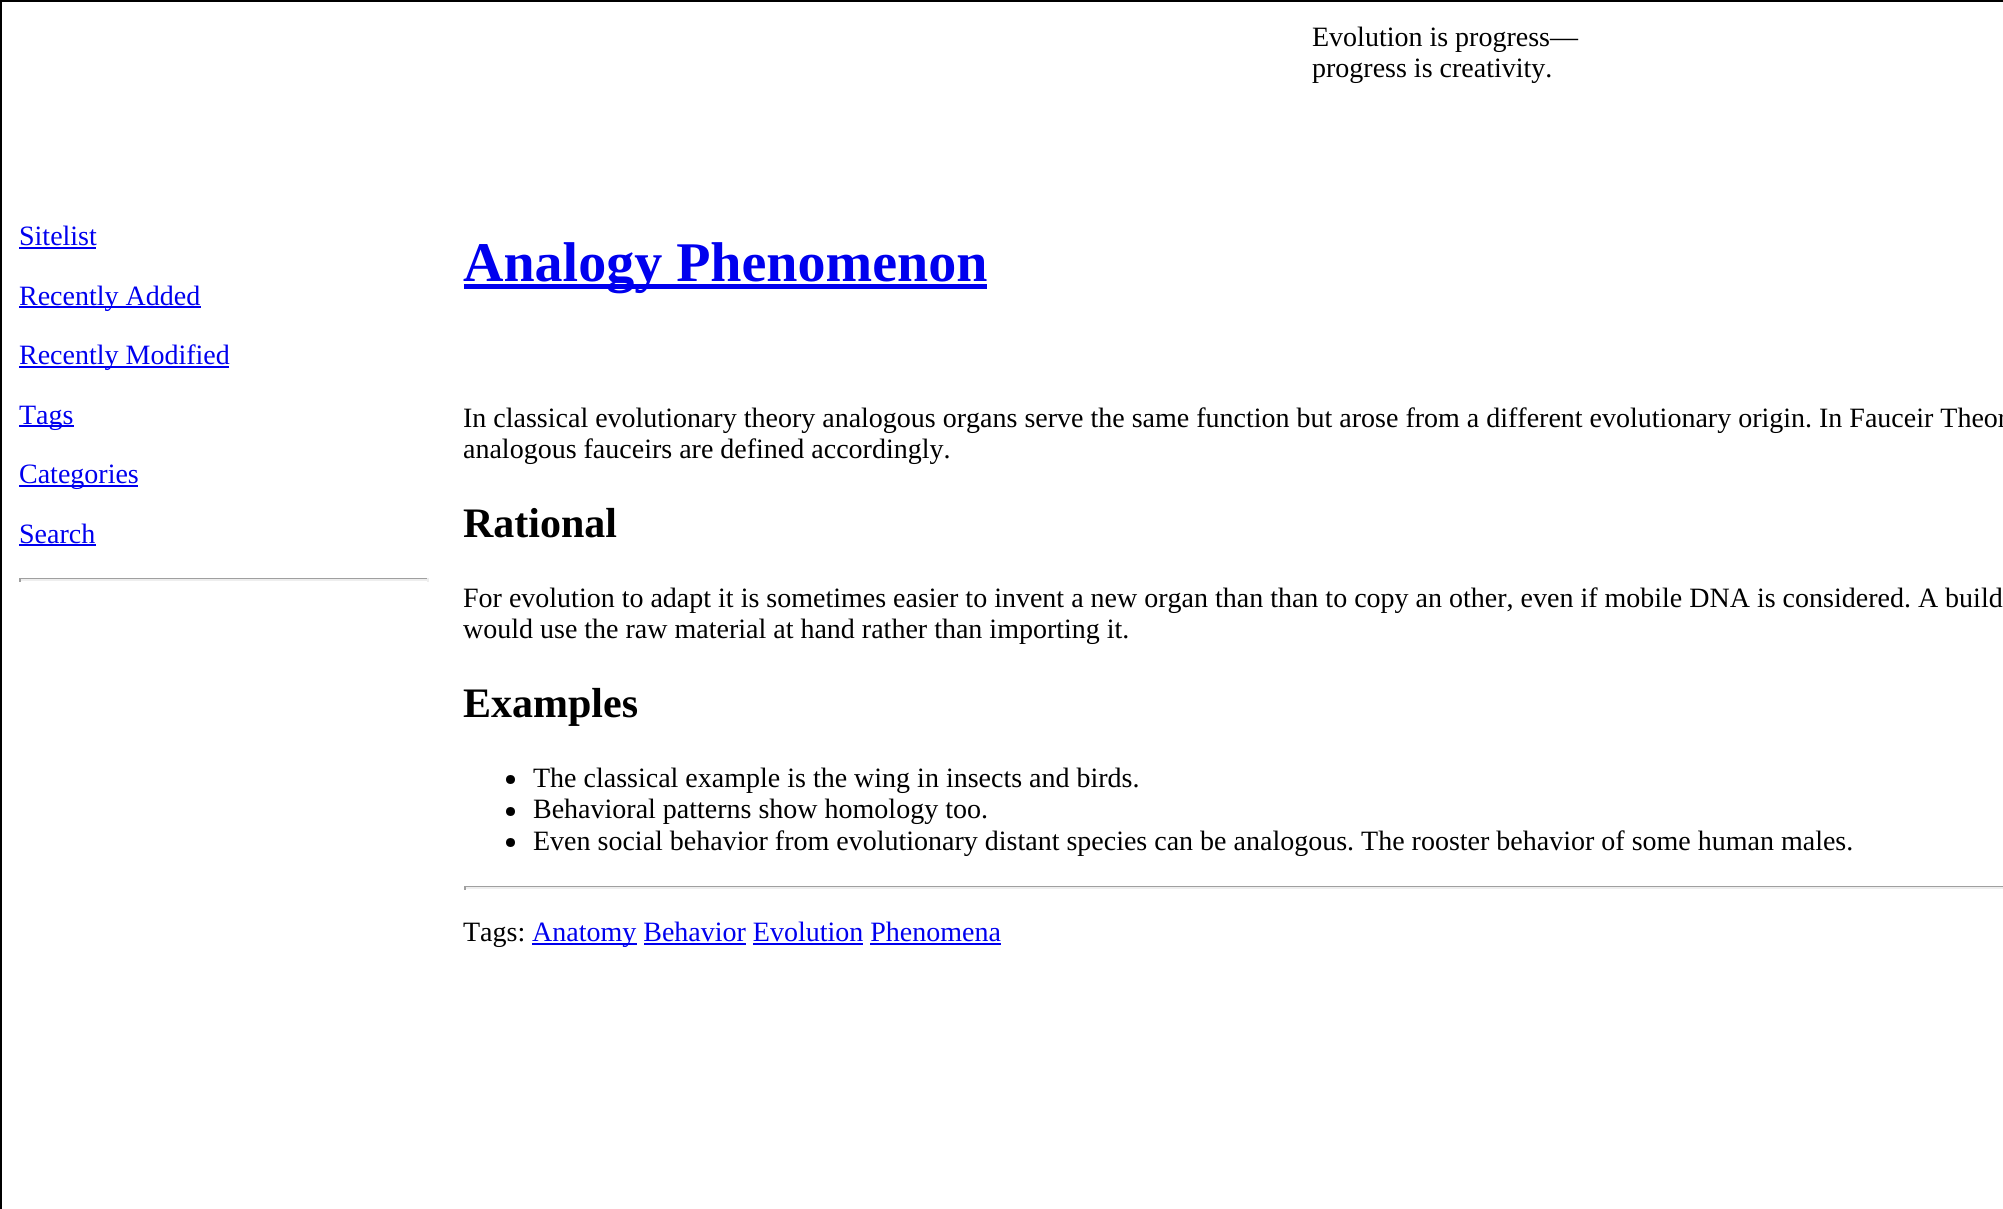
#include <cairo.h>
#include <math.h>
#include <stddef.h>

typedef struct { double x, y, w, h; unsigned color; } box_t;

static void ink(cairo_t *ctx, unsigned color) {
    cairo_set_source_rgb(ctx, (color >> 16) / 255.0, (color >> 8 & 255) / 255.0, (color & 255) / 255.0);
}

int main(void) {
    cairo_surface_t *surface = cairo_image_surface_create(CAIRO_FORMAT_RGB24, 2003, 1209);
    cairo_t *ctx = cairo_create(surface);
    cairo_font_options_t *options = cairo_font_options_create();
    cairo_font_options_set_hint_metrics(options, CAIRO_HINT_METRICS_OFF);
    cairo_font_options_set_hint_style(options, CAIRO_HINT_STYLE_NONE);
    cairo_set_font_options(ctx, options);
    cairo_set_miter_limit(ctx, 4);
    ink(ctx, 0xFFFFFF);
    cairo_paint(ctx);
    cairo_rectangle(ctx, 1, 1, 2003, 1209);
    ink(ctx, 0x000000);
    cairo_stroke(ctx);
    cairo_select_font_face(ctx, "Liberation Serif", CAIRO_FONT_SLANT_NORMAL, CAIRO_FONT_WEIGHT_NORMAL);
    cairo_set_font_size(ctx, 28);
    cairo_move_to(ctx, 1312, 46);
    cairo_show_text(ctx, "Evolution is progress—");
    cairo_move_to(ctx, 1312, 77);
    cairo_show_text(ctx, "progress is creativity.");
    ink(ctx, 0x0000EE);
    cairo_move_to(ctx, 19, 245);
    cairo_show_text(ctx, "Sitelist");
    cairo_rectangle(ctx, 19, 247, 77, 2);
    cairo_fill(ctx);
    cairo_rectangle(ctx, 19, 306, 182, 2);
    cairo_fill(ctx);
    cairo_move_to(ctx, 19, 305);
    cairo_show_text(ctx, "Recently Added");
    cairo_rectangle(ctx, 19, 366, 210, 2);
    cairo_fill(ctx);
    cairo_move_to(ctx, 19, 364);
    cairo_show_text(ctx, "Recently Modified");
    cairo_rectangle(ctx, 19, 425, 55, 2);
    cairo_fill(ctx);
    cairo_move_to(ctx, 19, 424);
    cairo_show_text(ctx, "Tags");
    cairo_rectangle(ctx, 19, 485, 119, 2);
    cairo_fill(ctx);
    cairo_move_to(ctx, 19, 483);
    cairo_show_text(ctx, "Categories");
    cairo_move_to(ctx, 19, 543);
    cairo_show_text(ctx, "Search");
    {
        static const box_t items[] = {
            {19, 544, 77, 2, 0x0000EE},
            {19, 578, 410, 1, 0x9F9F9F},
            {427, 578, 2, 4, 0xEEEEEE},
            {19, 579, 410, 2, 0xEEEEEE},
            {19, 578, 2, 4, 0x9F9F9F},
            {464, 284, 523, 5, 0x0000EE},
        };
        for (size_t i = 0; i < sizeof items / sizeof *items; i++) {
            ink(ctx, items[i].color);
            cairo_rectangle(ctx, items[i].x, items[i].y, items[i].w, items[i].h);
            cairo_fill(ctx);
        }
    }
    cairo_select_font_face(ctx, "Liberation Serif", CAIRO_FONT_SLANT_NORMAL, CAIRO_FONT_WEIGHT_BOLD);
    cairo_set_font_size(ctx, 56);
    cairo_move_to(ctx, 463, 281);
    cairo_show_text(ctx, "Analogy Phenomenon");
    cairo_select_font_face(ctx, "Liberation Serif", CAIRO_FONT_SLANT_NORMAL, CAIRO_FONT_WEIGHT_NORMAL);
    cairo_set_font_size(ctx, 28);
    ink(ctx, 0x000000);
    cairo_move_to(ctx, 463, 427);
    cairo_show_text(ctx, "In classical evolutionary theory analogous organs serve the same function but arose from a different evolutionary origin. In Fauceir Theor");
    cairo_move_to(ctx, 463, 458);
    cairo_show_text(ctx, "analogous fauceirs are defined accordingly.");
    cairo_select_font_face(ctx, "Liberation Serif", CAIRO_FONT_SLANT_NORMAL, CAIRO_FONT_WEIGHT_BOLD);
    cairo_set_font_size(ctx, 42);
    cairo_move_to(ctx, 463, 537);
    cairo_show_text(ctx, "Rational");
    cairo_select_font_face(ctx, "Liberation Serif", CAIRO_FONT_SLANT_NORMAL, CAIRO_FONT_WEIGHT_NORMAL);
    cairo_set_font_size(ctx, 28);
    cairo_move_to(ctx, 463, 607);
    cairo_show_text(ctx, "For evolution to adapt it is sometimes easier to invent a new organ than than to copy an other, even if mobile DNA is considered. A build");
    cairo_move_to(ctx, 463, 638);
    cairo_show_text(ctx, "would use the raw material at hand rather than importing it.");
    cairo_select_font_face(ctx, "Liberation Serif", CAIRO_FONT_SLANT_NORMAL, CAIRO_FONT_WEIGHT_BOLD);
    cairo_set_font_size(ctx, 42);
    cairo_move_to(ctx, 463, 717);
    cairo_show_text(ctx, "Examples");
    cairo_new_path(ctx);
    cairo_arc(ctx, 510.5, 779.5, 4.5, 0, 2 * M_PI);
    cairo_fill(ctx);
    cairo_select_font_face(ctx, "Liberation Serif", CAIRO_FONT_SLANT_NORMAL, CAIRO_FONT_WEIGHT_NORMAL);
    cairo_set_font_size(ctx, 28);
    cairo_move_to(ctx, 533, 787);
    cairo_show_text(ctx, "The classical example is the wing in insects and birds.");
    cairo_new_path(ctx);
    cairo_arc(ctx, 510.5, 811.5, 4.5, 0, 2 * M_PI);
    cairo_fill(ctx);
    cairo_move_to(ctx, 533, 818);
    cairo_show_text(ctx, "Behavioral patterns show homology too.");
    cairo_new_path(ctx);
    cairo_arc(ctx, 510.5, 842.5, 4.5, 0, 2 * M_PI);
    cairo_fill(ctx);
    cairo_move_to(ctx, 533, 850);
    cairo_show_text(ctx, "Even social behavior from evolutionary distant species can be analogous. The rooster behavior of some human males.");
    {
        static const box_t items[] = {
            {464, 886, 1539, 1, 0x9F9F9F},
            {464, 887, 1539, 2, 0xEEEEEE},
            {464, 886, 2, 4, 0x9F9F9F},
        };
        for (size_t i = 0; i < sizeof items / sizeof *items; i++) {
            ink(ctx, items[i].color);
            cairo_rectangle(ctx, items[i].x, items[i].y, items[i].w, items[i].h);
            cairo_fill(ctx);
        }
    }
    ink(ctx, 0x000000);
    cairo_move_to(ctx, 463, 941);
    cairo_show_text(ctx, "Tags:");
    ink(ctx, 0x0000EE);
    cairo_rectangle(ctx, 532, 943, 105, 2);
    cairo_fill(ctx);
    cairo_move_to(ctx, 532, 941);
    cairo_show_text(ctx, "Anatomy Behavior Evolution Phenomena");
    {
        static const box_t items[] = {
            {644, 943, 102, 2, 0x0000EE},
            {753, 943, 110, 2, 0x0000EE},
            {870, 943, 131, 2, 0x0000EE},
        };
        for (size_t i = 0; i < sizeof items / sizeof *items; i++) {
            ink(ctx, items[i].color);
            cairo_rectangle(ctx, items[i].x, items[i].y, items[i].w, items[i].h);
            cairo_fill(ctx);
        }
    }
    cairo_surface_write_to_png(surface, "image.png");
    cairo_font_options_destroy(options);
    cairo_destroy(ctx);
    cairo_surface_destroy(surface);
    return 0;
}
